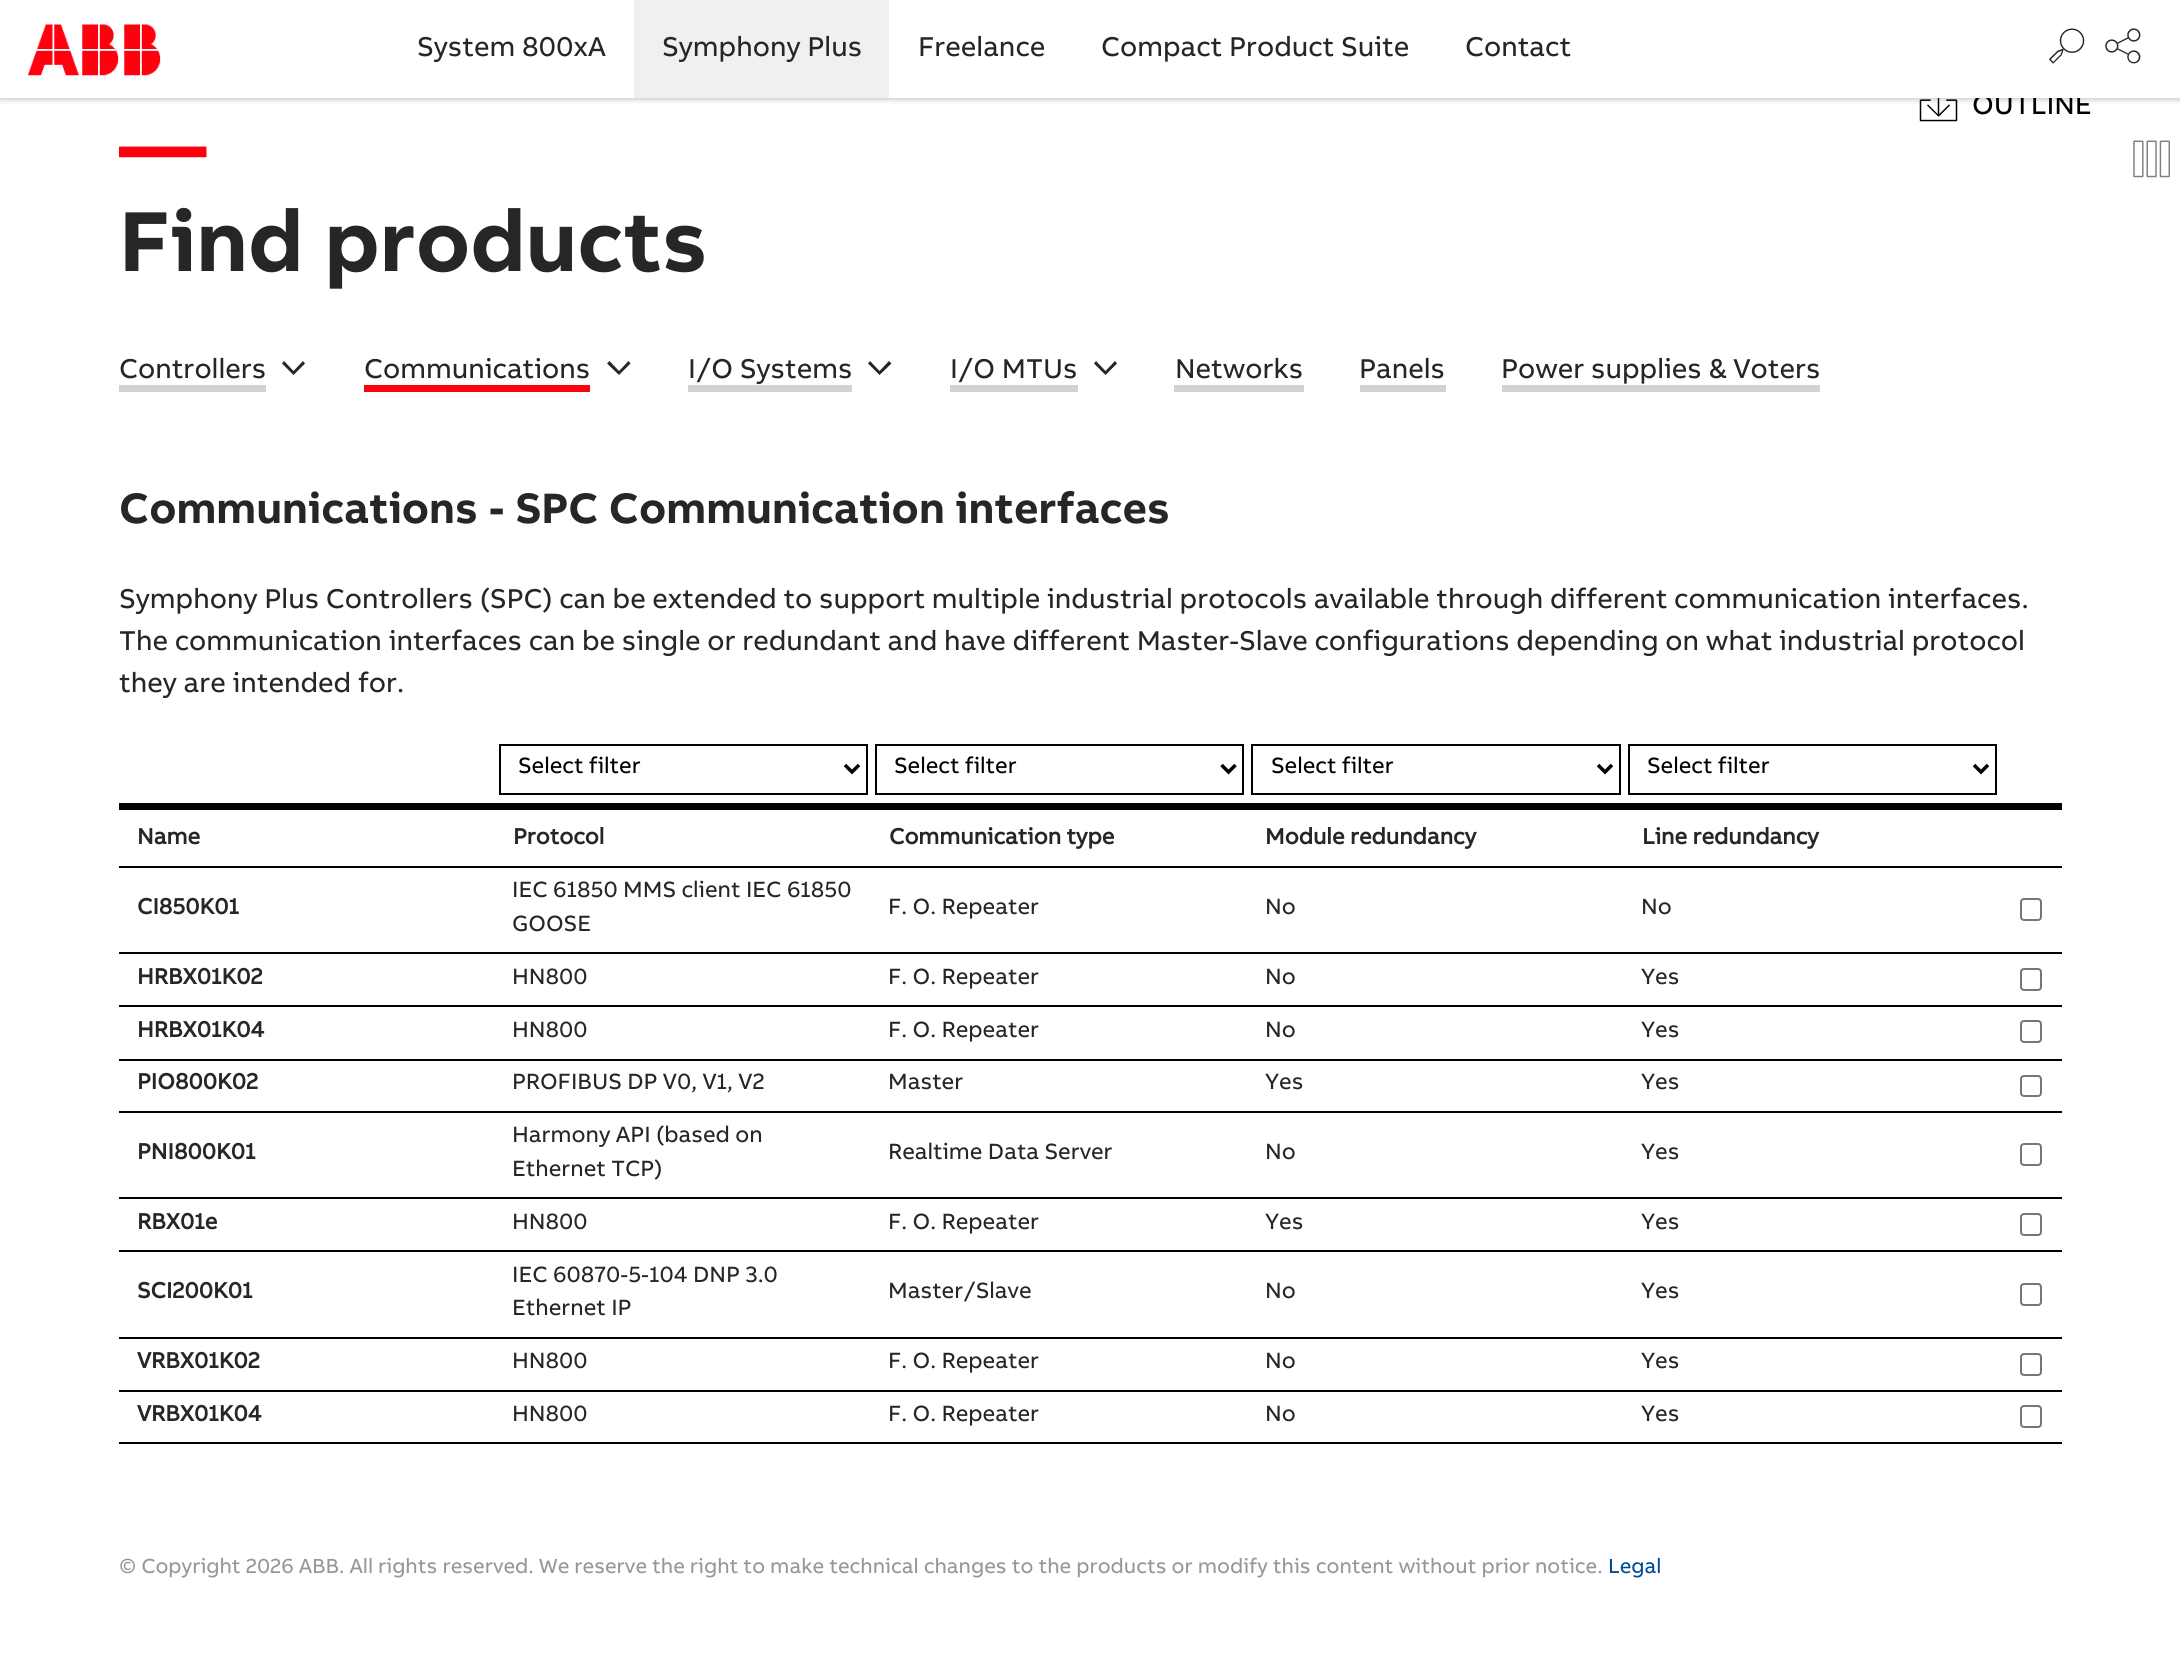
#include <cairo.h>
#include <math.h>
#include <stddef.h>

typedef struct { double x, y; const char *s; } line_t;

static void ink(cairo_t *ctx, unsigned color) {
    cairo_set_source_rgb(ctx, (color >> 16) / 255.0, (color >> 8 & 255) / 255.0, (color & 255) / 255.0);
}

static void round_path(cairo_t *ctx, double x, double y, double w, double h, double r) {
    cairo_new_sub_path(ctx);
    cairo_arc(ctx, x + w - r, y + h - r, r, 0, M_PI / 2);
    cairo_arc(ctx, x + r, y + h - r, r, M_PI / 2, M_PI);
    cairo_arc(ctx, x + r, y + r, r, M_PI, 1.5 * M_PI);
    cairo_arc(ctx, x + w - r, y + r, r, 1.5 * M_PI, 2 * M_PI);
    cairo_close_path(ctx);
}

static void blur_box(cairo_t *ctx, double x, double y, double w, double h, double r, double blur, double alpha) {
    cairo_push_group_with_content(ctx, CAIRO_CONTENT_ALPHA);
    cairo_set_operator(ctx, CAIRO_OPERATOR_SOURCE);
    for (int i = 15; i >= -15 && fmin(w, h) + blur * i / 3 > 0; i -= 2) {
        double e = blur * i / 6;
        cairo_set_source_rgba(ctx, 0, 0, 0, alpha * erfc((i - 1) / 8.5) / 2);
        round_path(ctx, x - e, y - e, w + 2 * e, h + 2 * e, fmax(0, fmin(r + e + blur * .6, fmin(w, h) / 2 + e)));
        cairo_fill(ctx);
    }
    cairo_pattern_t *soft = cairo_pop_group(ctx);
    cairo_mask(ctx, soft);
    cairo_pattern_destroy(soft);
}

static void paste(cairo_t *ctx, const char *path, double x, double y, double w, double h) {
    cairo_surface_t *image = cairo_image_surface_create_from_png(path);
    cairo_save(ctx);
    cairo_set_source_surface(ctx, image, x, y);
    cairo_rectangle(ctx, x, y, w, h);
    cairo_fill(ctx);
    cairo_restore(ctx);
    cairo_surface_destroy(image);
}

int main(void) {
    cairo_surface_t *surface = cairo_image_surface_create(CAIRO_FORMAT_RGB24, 2180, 1667);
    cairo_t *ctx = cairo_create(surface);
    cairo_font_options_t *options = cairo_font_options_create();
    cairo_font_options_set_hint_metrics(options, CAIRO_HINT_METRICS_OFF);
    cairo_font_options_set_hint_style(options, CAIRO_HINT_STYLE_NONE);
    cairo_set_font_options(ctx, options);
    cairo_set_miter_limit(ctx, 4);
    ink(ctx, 0xFFFFFF);
    cairo_paint(ctx);
    paste(ctx, "media/4.png", 1919, 98, 39, 24);
    ink(ctx, 0x000000);
    blur_box(ctx, 0, 2, 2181, 98, 0, 2.5, 0.2);
    cairo_select_font_face(ctx, "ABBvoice", CAIRO_FONT_SLANT_NORMAL, CAIRO_FONT_WEIGHT_NORMAL);
    cairo_set_font_size(ctx, 28);
    ink(ctx, 0x000000);
    cairo_move_to(ctx, 1972, 114);
    cairo_show_text(ctx, "OUTLINE");
    ink(ctx, 0xFFFFFF);
    cairo_rectangle(ctx, 0, 0, 2180, 98);
    cairo_fill(ctx);
    paste(ctx, "media/1.png", 28, 24, 133, 52);
    ink(ctx, 0x262626);
    cairo_move_to(ctx, 417, 56);
    cairo_show_text(ctx, "System 800xA");
    ink(ctx, 0xF0F0F0);
    cairo_rectangle(ctx, 634, 0, 255, 98);
    cairo_fill(ctx);
    ink(ctx, 0x262626);
    {
        static const line_t items[] = {
            {662, 56, "Symphony Plus"},
            {918, 56, "Freelance"},
            {1101, 56, "Compact Product Suite"},
            {1465, 56, "Contact"},
        };
        for (size_t i = 0; i < sizeof items / sizeof *items; i++) {
            cairo_move_to(ctx, items[i].x, items[i].y);
            cairo_show_text(ctx, items[i].s);
        }
    }
    paste(ctx, "media/2.png", 2049, 28, 36, 36);
    paste(ctx, "media/3.png", 2105, 28, 36, 36);
    paste(ctx, "media/5.png", 2133, 140, 37, 38);
    cairo_select_font_face(ctx, "ABBvoice", CAIRO_FONT_SLANT_NORMAL, CAIRO_FONT_WEIGHT_BOLD);
    cairo_set_font_size(ctx, 87.5);
    ink(ctx, 0xFF000F);
    cairo_move_to(ctx, 119, 175);
    cairo_show_text(ctx, "—");
    ink(ctx, 0x262626);
    cairo_move_to(ctx, 119, 271);
    cairo_show_text(ctx, "Find products");
    cairo_select_font_face(ctx, "ABBvoice", CAIRO_FONT_SLANT_NORMAL, CAIRO_FONT_WEIGHT_NORMAL);
    cairo_set_font_size(ctx, 28);
    cairo_move_to(ctx, 119, 378);
    cairo_show_text(ctx, "Controllers");
    ink(ctx, 0xD2D2D2);
    cairo_rectangle(ctx, 119, 385, 147, 7);
    cairo_fill(ctx);
    ink(ctx, 0x262626);
    cairo_new_path(ctx);
    cairo_move_to(ctx, 293.5, 375);
    cairo_line_to(ctx, 282, 363.5);
    cairo_line_to(ctx, 284, 361);
    cairo_line_to(ctx, 293.5, 371);
    cairo_line_to(ctx, 303, 361);
    cairo_line_to(ctx, 305, 363.5);
    cairo_close_path(ctx);
    cairo_fill(ctx);
    cairo_move_to(ctx, 364, 378);
    cairo_show_text(ctx, "Communications");
    ink(ctx, 0xFF000F);
    cairo_rectangle(ctx, 364, 385, 226, 7);
    cairo_fill(ctx);
    ink(ctx, 0x262626);
    cairo_new_path(ctx);
    cairo_move_to(ctx, 619, 375);
    cairo_line_to(ctx, 607, 363.5);
    cairo_line_to(ctx, 609.5, 361);
    cairo_line_to(ctx, 619, 371);
    cairo_line_to(ctx, 628.5, 361);
    cairo_line_to(ctx, 630.5, 363.5);
    cairo_close_path(ctx);
    cairo_fill(ctx);
    cairo_move_to(ctx, 688, 378);
    cairo_show_text(ctx, "I/O Systems");
    ink(ctx, 0xD2D2D2);
    cairo_rectangle(ctx, 688, 385, 164, 7);
    cairo_fill(ctx);
    ink(ctx, 0x262626);
    cairo_new_path(ctx);
    cairo_move_to(ctx, 879.5, 375);
    cairo_line_to(ctx, 868, 363.5);
    cairo_line_to(ctx, 870, 361);
    cairo_line_to(ctx, 879.5, 371);
    cairo_line_to(ctx, 889, 361);
    cairo_line_to(ctx, 891.5, 363.5);
    cairo_close_path(ctx);
    cairo_fill(ctx);
    cairo_move_to(ctx, 950, 378);
    cairo_show_text(ctx, "I/O MTUs");
    ink(ctx, 0xD2D2D2);
    cairo_rectangle(ctx, 950, 385, 128, 7);
    cairo_fill(ctx);
    ink(ctx, 0x262626);
    cairo_new_path(ctx);
    cairo_move_to(ctx, 1105.5, 375);
    cairo_line_to(ctx, 1094, 363.5);
    cairo_line_to(ctx, 1096, 361);
    cairo_line_to(ctx, 1105.5, 371);
    cairo_line_to(ctx, 1115, 361);
    cairo_line_to(ctx, 1117, 363.5);
    cairo_close_path(ctx);
    cairo_fill(ctx);
    cairo_move_to(ctx, 1175, 378);
    cairo_show_text(ctx, "Networks");
    ink(ctx, 0xD2D2D2);
    cairo_rectangle(ctx, 1174, 385, 130, 7);
    cairo_fill(ctx);
    ink(ctx, 0x262626);
    cairo_move_to(ctx, 1359, 378);
    cairo_show_text(ctx, "Panels");
    ink(ctx, 0xD2D2D2);
    cairo_rectangle(ctx, 1360, 385, 86, 7);
    cairo_fill(ctx);
    ink(ctx, 0x262626);
    cairo_move_to(ctx, 1501, 378);
    cairo_show_text(ctx, "Power supplies & Voters");
    ink(ctx, 0xD2D2D2);
    cairo_rectangle(ctx, 1502, 385, 318, 7);
    cairo_fill(ctx);
    cairo_select_font_face(ctx, "ABBvoice", CAIRO_FONT_SLANT_NORMAL, CAIRO_FONT_WEIGHT_BOLD);
    cairo_set_font_size(ctx, 43.75);
    ink(ctx, 0x262626);
    cairo_move_to(ctx, 119, 523);
    cairo_show_text(ctx, "Communications - SPC Communication interfaces");
    cairo_select_font_face(ctx, "ABBvoice", CAIRO_FONT_SLANT_NORMAL, CAIRO_FONT_WEIGHT_NORMAL);
    cairo_set_font_size(ctx, 28);
    {
        static const line_t items[] = {
            {119, 608, "Symphony Plus Controllers (SPC) can be extended to support multiple industrial protocols available through different communication interfaces."},
            {119, 650, "The communication interfaces can be single or redundant and have different Master-Slave configurations depending on what industrial protocol"},
            {119, 692, "they are intended for."},
        };
        for (size_t i = 0; i < sizeof items / sizeof *items; i++) {
            cairo_move_to(ctx, items[i].x, items[i].y);
            cairo_show_text(ctx, items[i].s);
        }
    }
    cairo_rectangle(ctx, 500, 745, 367, 49);
    ink(ctx, 0x000000);
    cairo_stroke(ctx);
    cairo_new_path(ctx);
    cairo_move_to(ctx, 845, 765);
    cairo_line_to(ctx, 852, 772);
    cairo_line_to(ctx, 859, 765);
    cairo_set_line_width(ctx, 3.5);
    cairo_stroke(ctx);
    cairo_set_font_size(ctx, 22.75);
    cairo_move_to(ctx, 518, 773);
    cairo_show_text(ctx, "Select filter");
    cairo_rectangle(ctx, 876, 745, 367, 49);
    cairo_set_line_width(ctx, 2);
    cairo_stroke(ctx);
    cairo_new_path(ctx);
    cairo_move_to(ctx, 1221.5, 765);
    cairo_line_to(ctx, 1228.5, 772);
    cairo_line_to(ctx, 1235.5, 765);
    cairo_set_line_width(ctx, 3.5);
    cairo_stroke(ctx);
    cairo_move_to(ctx, 894, 773);
    cairo_show_text(ctx, "Select filter");
    cairo_rectangle(ctx, 1252, 745, 368, 49);
    cairo_set_line_width(ctx, 2);
    cairo_stroke(ctx);
    cairo_new_path(ctx);
    cairo_move_to(ctx, 1598, 765);
    cairo_line_to(ctx, 1605, 772);
    cairo_line_to(ctx, 1612, 765);
    cairo_set_line_width(ctx, 3.5);
    cairo_stroke(ctx);
    cairo_move_to(ctx, 1271, 773);
    cairo_show_text(ctx, "Select filter");
    cairo_rectangle(ctx, 1629, 745, 367, 49);
    cairo_set_line_width(ctx, 2);
    cairo_stroke(ctx);
    cairo_new_path(ctx);
    cairo_move_to(ctx, 1974, 765);
    cairo_line_to(ctx, 1981, 772);
    cairo_line_to(ctx, 1988, 765);
    cairo_set_line_width(ctx, 3.5);
    cairo_stroke(ctx);
    cairo_move_to(ctx, 1647, 773);
    cairo_show_text(ctx, "Select filter");
    cairo_rectangle(ctx, 119, 803, 1943, 7);
    cairo_fill(ctx);
    cairo_rectangle(ctx, 119, 866, 1943, 2);
    cairo_fill(ctx);
    cairo_select_font_face(ctx, "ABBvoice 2", CAIRO_FONT_SLANT_NORMAL, CAIRO_FONT_WEIGHT_BOLD);
    ink(ctx, 0x262626);
    {
        static const line_t items[] = {
            {137, 844, "Name"},
            {513, 844, "Protocol"},
            {889, 844, "Communication type"},
            {1265, 844, "Module redundancy"},
            {1642, 844, "Line redundancy"},
        };
        for (size_t i = 0; i < sizeof items / sizeof *items; i++) {
            cairo_move_to(ctx, items[i].x, items[i].y);
            cairo_show_text(ctx, items[i].s);
        }
    }
    ink(ctx, 0x000000);
    cairo_rectangle(ctx, 119, 952, 1943, 2);
    cairo_fill(ctx);
    ink(ctx, 0x262626);
    cairo_move_to(ctx, 137, 914);
    cairo_show_text(ctx, "CI850K01");
    cairo_select_font_face(ctx, "ABBvoice", CAIRO_FONT_SLANT_NORMAL, CAIRO_FONT_WEIGHT_NORMAL);
    {
        static const line_t items[] = {
            {512, 897, "IEC 61850 MMS client IEC 61850"},
            {512, 931, "GOOSE"},
            {888, 914, "F. O. Repeater"},
            {1265, 914, "No"},
            {1641, 914, "No"},
        };
        for (size_t i = 0; i < sizeof items / sizeof *items; i++) {
            cairo_move_to(ctx, items[i].x, items[i].y);
            cairo_show_text(ctx, items[i].s);
        }
    }
    round_path(ctx, 2021, 899, 20, 21, 3);
    ink(ctx, 0x767676);
    cairo_set_line_width(ctx, 2);
    cairo_stroke(ctx);
    ink(ctx, 0x000000);
    cairo_rectangle(ctx, 119, 1005, 1943, 2);
    cairo_fill(ctx);
    cairo_select_font_face(ctx, "ABBvoice 2", CAIRO_FONT_SLANT_NORMAL, CAIRO_FONT_WEIGHT_BOLD);
    ink(ctx, 0x262626);
    cairo_move_to(ctx, 137, 984);
    cairo_show_text(ctx, "HRBX01K02");
    cairo_select_font_face(ctx, "ABBvoice", CAIRO_FONT_SLANT_NORMAL, CAIRO_FONT_WEIGHT_NORMAL);
    {
        static const line_t items[] = {
            {512, 984, "HN800"},
            {888, 984, "F. O. Repeater"},
            {1265, 984, "No"},
            {1641, 984, "Yes"},
        };
        for (size_t i = 0; i < sizeof items / sizeof *items; i++) {
            cairo_move_to(ctx, items[i].x, items[i].y);
            cairo_show_text(ctx, items[i].s);
        }
    }
    round_path(ctx, 2021, 969, 20, 21, 3);
    ink(ctx, 0x767676);
    cairo_stroke(ctx);
    ink(ctx, 0x000000);
    cairo_rectangle(ctx, 119, 1059, 1943, 2);
    cairo_fill(ctx);
    cairo_select_font_face(ctx, "ABBvoice 2", CAIRO_FONT_SLANT_NORMAL, CAIRO_FONT_WEIGHT_BOLD);
    ink(ctx, 0x262626);
    cairo_move_to(ctx, 137, 1037);
    cairo_show_text(ctx, "HRBX01K04");
    cairo_select_font_face(ctx, "ABBvoice", CAIRO_FONT_SLANT_NORMAL, CAIRO_FONT_WEIGHT_NORMAL);
    {
        static const line_t items[] = {
            {512, 1037, "HN800"},
            {888, 1037, "F. O. Repeater"},
            {1265, 1037, "No"},
            {1641, 1037, "Yes"},
        };
        for (size_t i = 0; i < sizeof items / sizeof *items; i++) {
            cairo_move_to(ctx, items[i].x, items[i].y);
            cairo_show_text(ctx, items[i].s);
        }
    }
    round_path(ctx, 2021, 1021, 20, 21, 3);
    ink(ctx, 0x767676);
    cairo_stroke(ctx);
    ink(ctx, 0x000000);
    cairo_rectangle(ctx, 119, 1111, 1943, 2);
    cairo_fill(ctx);
    cairo_select_font_face(ctx, "ABBvoice 2", CAIRO_FONT_SLANT_NORMAL, CAIRO_FONT_WEIGHT_BOLD);
    ink(ctx, 0x262626);
    cairo_move_to(ctx, 137, 1089);
    cairo_show_text(ctx, "PIO800K02");
    cairo_select_font_face(ctx, "ABBvoice", CAIRO_FONT_SLANT_NORMAL, CAIRO_FONT_WEIGHT_NORMAL);
    {
        static const line_t items[] = {
            {512, 1089, "PROFIBUS DP V0, V1, V2"},
            {888, 1089, "Master"},
            {1265, 1089, "Yes"},
            {1641, 1089, "Yes"},
        };
        for (size_t i = 0; i < sizeof items / sizeof *items; i++) {
            cairo_move_to(ctx, items[i].x, items[i].y);
            cairo_show_text(ctx, items[i].s);
        }
    }
    round_path(ctx, 2021, 1076, 20, 20, 3);
    ink(ctx, 0x767676);
    cairo_stroke(ctx);
    ink(ctx, 0x000000);
    cairo_rectangle(ctx, 119, 1197, 1943, 2);
    cairo_fill(ctx);
    cairo_select_font_face(ctx, "ABBvoice 2", CAIRO_FONT_SLANT_NORMAL, CAIRO_FONT_WEIGHT_BOLD);
    ink(ctx, 0x262626);
    cairo_move_to(ctx, 137, 1159);
    cairo_show_text(ctx, "PNI800K01");
    cairo_select_font_face(ctx, "ABBvoice", CAIRO_FONT_SLANT_NORMAL, CAIRO_FONT_WEIGHT_NORMAL);
    {
        static const line_t items[] = {
            {512, 1142, "Harmony API (based on"},
            {512, 1176, "Ethernet TCP)"},
            {888, 1159, "Realtime Data Server"},
            {1265, 1159, "No"},
            {1641, 1159, "Yes"},
        };
        for (size_t i = 0; i < sizeof items / sizeof *items; i++) {
            cairo_move_to(ctx, items[i].x, items[i].y);
            cairo_show_text(ctx, items[i].s);
        }
    }
    round_path(ctx, 2021, 1144, 20, 21, 3);
    ink(ctx, 0x767676);
    cairo_stroke(ctx);
    ink(ctx, 0x000000);
    cairo_rectangle(ctx, 119, 1250, 1943, 2);
    cairo_fill(ctx);
    cairo_select_font_face(ctx, "ABBvoice 2", CAIRO_FONT_SLANT_NORMAL, CAIRO_FONT_WEIGHT_BOLD);
    ink(ctx, 0x262626);
    cairo_move_to(ctx, 137, 1229);
    cairo_show_text(ctx, "RBX01e");
    cairo_select_font_face(ctx, "ABBvoice", CAIRO_FONT_SLANT_NORMAL, CAIRO_FONT_WEIGHT_NORMAL);
    {
        static const line_t items[] = {
            {512, 1229, "HN800"},
            {888, 1229, "F. O. Repeater"},
            {1265, 1229, "Yes"},
            {1641, 1229, "Yes"},
        };
        for (size_t i = 0; i < sizeof items / sizeof *items; i++) {
            cairo_move_to(ctx, items[i].x, items[i].y);
            cairo_show_text(ctx, items[i].s);
        }
    }
    round_path(ctx, 2021, 1214, 20, 21, 3);
    ink(ctx, 0x767676);
    cairo_stroke(ctx);
    ink(ctx, 0x000000);
    cairo_rectangle(ctx, 119, 1337, 1943, 2);
    cairo_fill(ctx);
    cairo_select_font_face(ctx, "ABBvoice 2", CAIRO_FONT_SLANT_NORMAL, CAIRO_FONT_WEIGHT_BOLD);
    ink(ctx, 0x262626);
    cairo_move_to(ctx, 137, 1298);
    cairo_show_text(ctx, "SCI200K01");
    cairo_select_font_face(ctx, "ABBvoice", CAIRO_FONT_SLANT_NORMAL, CAIRO_FONT_WEIGHT_NORMAL);
    {
        static const line_t items[] = {
            {512, 1282, "IEC 60870-5-104 DNP 3.0"},
            {512, 1315, "Ethernet IP"},
            {888, 1298, "Master/Slave"},
            {1265, 1298, "No"},
            {1641, 1298, "Yes"},
        };
        for (size_t i = 0; i < sizeof items / sizeof *items; i++) {
            cairo_move_to(ctx, items[i].x, items[i].y);
            cairo_show_text(ctx, items[i].s);
        }
    }
    round_path(ctx, 2021, 1284, 20, 21, 3);
    ink(ctx, 0x767676);
    cairo_stroke(ctx);
    ink(ctx, 0x000000);
    cairo_rectangle(ctx, 119, 1390, 1943, 2);
    cairo_fill(ctx);
    cairo_select_font_face(ctx, "ABBvoice 2", CAIRO_FONT_SLANT_NORMAL, CAIRO_FONT_WEIGHT_BOLD);
    ink(ctx, 0x262626);
    cairo_move_to(ctx, 137, 1368);
    cairo_show_text(ctx, "VRBX01K02");
    cairo_select_font_face(ctx, "ABBvoice", CAIRO_FONT_SLANT_NORMAL, CAIRO_FONT_WEIGHT_NORMAL);
    {
        static const line_t items[] = {
            {512, 1368, "HN800"},
            {888, 1368, "F. O. Repeater"},
            {1265, 1368, "No"},
            {1641, 1368, "Yes"},
        };
        for (size_t i = 0; i < sizeof items / sizeof *items; i++) {
            cairo_move_to(ctx, items[i].x, items[i].y);
            cairo_show_text(ctx, items[i].s);
        }
    }
    round_path(ctx, 2021, 1354, 20, 21, 3);
    ink(ctx, 0x767676);
    cairo_stroke(ctx);
    ink(ctx, 0x000000);
    cairo_rectangle(ctx, 119, 1442, 1943, 2);
    cairo_fill(ctx);
    cairo_select_font_face(ctx, "ABBvoice 2", CAIRO_FONT_SLANT_NORMAL, CAIRO_FONT_WEIGHT_BOLD);
    ink(ctx, 0x262626);
    cairo_move_to(ctx, 137, 1421);
    cairo_show_text(ctx, "VRBX01K04");
    cairo_select_font_face(ctx, "ABBvoice", CAIRO_FONT_SLANT_NORMAL, CAIRO_FONT_WEIGHT_NORMAL);
    {
        static const line_t items[] = {
            {512, 1421, "HN800"},
            {888, 1421, "F. O. Repeater"},
            {1265, 1421, "No"},
            {1641, 1421, "Yes"},
        };
        for (size_t i = 0; i < sizeof items / sizeof *items; i++) {
            cairo_move_to(ctx, items[i].x, items[i].y);
            cairo_show_text(ctx, items[i].s);
        }
    }
    round_path(ctx, 2021, 1406, 20, 21, 3);
    ink(ctx, 0x767676);
    cairo_stroke(ctx);
    cairo_set_font_size(ctx, 21);
    ink(ctx, 0x95989A);
    cairo_move_to(ctx, 119, 1573);
    cairo_show_text(ctx, "© Copyright 2026 ABB. All rights reserved. We reserve the right to make technical changes to the products or modify this content without prior notice.");
    ink(ctx, 0x004C97);
    cairo_move_to(ctx, 1608, 1573);
    cairo_show_text(ctx, "Legal");
    cairo_surface_write_to_png(surface, "image.png");
    cairo_font_options_destroy(options);
    cairo_destroy(ctx);
    cairo_surface_destroy(surface);
    return 0;
}
